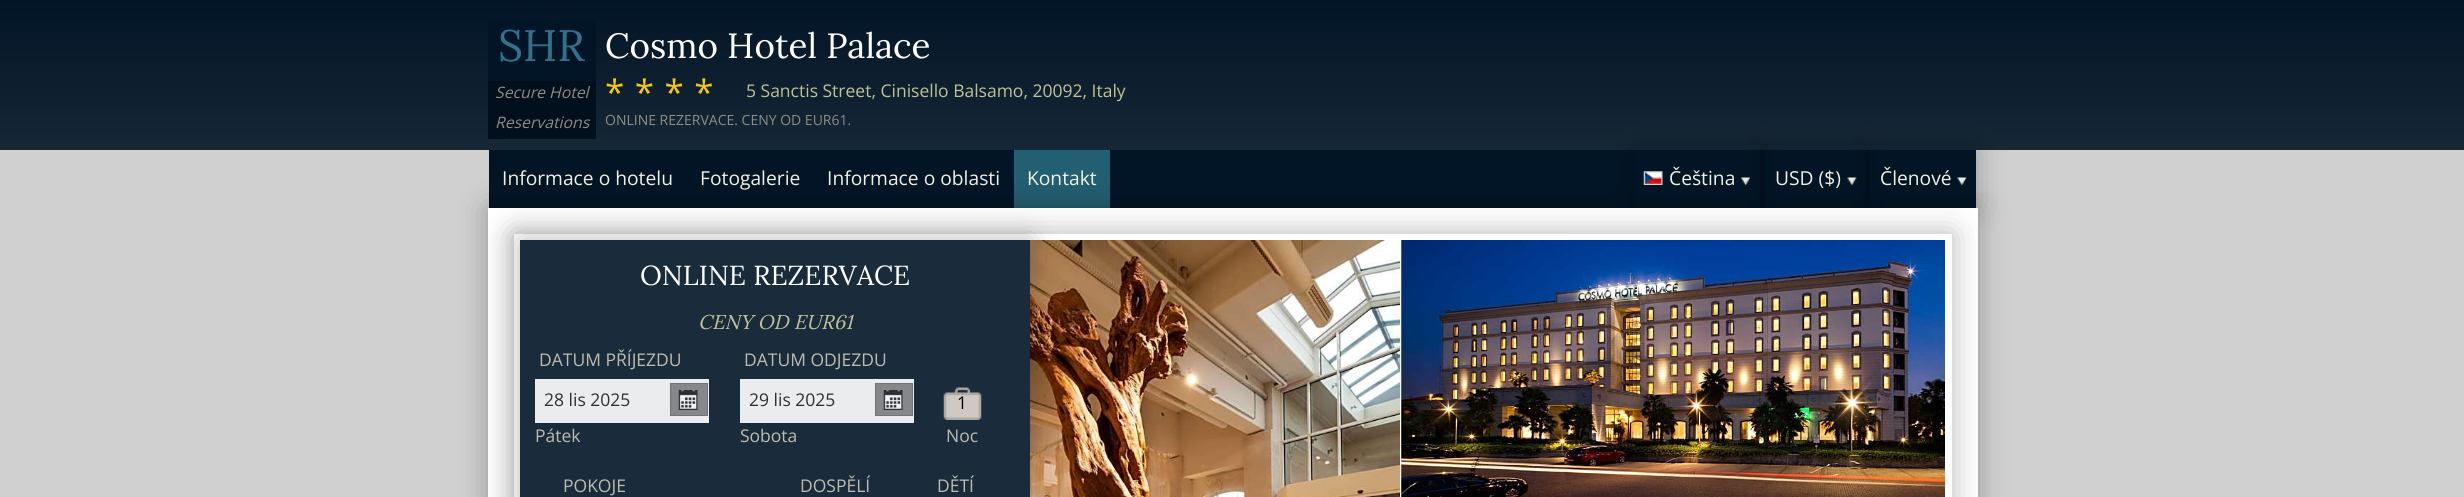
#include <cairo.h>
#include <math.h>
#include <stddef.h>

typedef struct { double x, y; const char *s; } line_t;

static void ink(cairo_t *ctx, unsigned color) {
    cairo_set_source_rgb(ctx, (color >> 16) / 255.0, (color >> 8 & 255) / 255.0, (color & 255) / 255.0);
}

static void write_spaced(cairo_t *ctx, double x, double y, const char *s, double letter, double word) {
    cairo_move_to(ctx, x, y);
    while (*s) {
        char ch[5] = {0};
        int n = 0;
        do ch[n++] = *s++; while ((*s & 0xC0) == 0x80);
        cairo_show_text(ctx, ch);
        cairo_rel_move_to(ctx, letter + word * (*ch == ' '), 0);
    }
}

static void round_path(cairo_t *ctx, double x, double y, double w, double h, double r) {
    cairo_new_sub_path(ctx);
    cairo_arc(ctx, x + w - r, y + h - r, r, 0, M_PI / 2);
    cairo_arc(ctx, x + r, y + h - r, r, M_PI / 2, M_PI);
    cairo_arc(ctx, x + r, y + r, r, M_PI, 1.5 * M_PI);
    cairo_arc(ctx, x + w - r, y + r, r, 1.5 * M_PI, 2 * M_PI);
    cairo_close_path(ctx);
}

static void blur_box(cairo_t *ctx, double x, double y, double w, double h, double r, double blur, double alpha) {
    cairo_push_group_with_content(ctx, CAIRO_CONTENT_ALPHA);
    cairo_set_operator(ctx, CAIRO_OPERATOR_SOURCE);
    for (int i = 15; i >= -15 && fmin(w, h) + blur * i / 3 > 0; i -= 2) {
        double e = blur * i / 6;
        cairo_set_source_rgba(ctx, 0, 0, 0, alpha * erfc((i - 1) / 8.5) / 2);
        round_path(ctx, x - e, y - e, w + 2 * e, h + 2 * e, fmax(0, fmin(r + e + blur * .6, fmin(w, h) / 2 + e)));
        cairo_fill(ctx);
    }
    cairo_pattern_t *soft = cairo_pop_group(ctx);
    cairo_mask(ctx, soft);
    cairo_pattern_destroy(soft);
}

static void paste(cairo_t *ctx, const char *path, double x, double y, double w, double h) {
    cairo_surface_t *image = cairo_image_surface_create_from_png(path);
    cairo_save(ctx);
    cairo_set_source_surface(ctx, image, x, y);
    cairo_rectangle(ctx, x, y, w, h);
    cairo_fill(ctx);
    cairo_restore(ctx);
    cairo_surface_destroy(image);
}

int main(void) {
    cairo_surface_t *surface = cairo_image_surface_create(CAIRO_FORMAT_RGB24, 2464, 497);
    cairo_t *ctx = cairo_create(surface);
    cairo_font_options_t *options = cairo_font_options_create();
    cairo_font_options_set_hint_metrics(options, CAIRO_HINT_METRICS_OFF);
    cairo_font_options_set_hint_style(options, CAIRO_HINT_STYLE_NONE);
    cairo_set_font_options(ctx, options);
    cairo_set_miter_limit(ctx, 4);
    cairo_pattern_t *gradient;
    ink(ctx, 0xD0D0D0);
    cairo_paint(ctx);
    gradient = cairo_pattern_create_linear(1233, 0, 1233, 150);
    cairo_pattern_add_color_stop_rgba(gradient, 0, 0.008, 0.082, 0.149, 1);
    cairo_pattern_add_color_stop_rgba(gradient, 1, 0.086, 0.153, 0.212, 1);
    cairo_set_source(ctx, gradient);
    cairo_pattern_destroy(gradient);
    cairo_rectangle(ctx, 0, 0, 2464, 150);
    cairo_fill(ctx);
    ink(ctx, 0x021526);
    cairo_rectangle(ctx, 488, 19, 108, 62);
    cairo_fill(ctx);
    cairo_select_font_face(ctx, "Lora", CAIRO_FONT_SLANT_NORMAL, CAIRO_FONT_WEIGHT_NORMAL);
    cairo_set_font_size(ctx, 44);
    ink(ctx, 0x33708A);
    cairo_move_to(ctx, 498, 61);
    cairo_show_text(ctx, "SHR");
    ink(ctx, 0x020F1C);
    cairo_rectangle(ctx, 488, 81, 108, 58);
    cairo_fill(ctx);
    cairo_select_font_face(ctx, "Open Sans", CAIRO_FONT_SLANT_ITALIC, CAIRO_FONT_WEIGHT_NORMAL);
    cairo_set_font_size(ctx, 15.75);
    ink(ctx, 0x8E8C86);
    cairo_move_to(ctx, 495, 98);
    cairo_show_text(ctx, "Secure Hotel");
    cairo_move_to(ctx, 495, 128);
    cairo_show_text(ctx, "Reservations");
    cairo_select_font_face(ctx, "Lora", CAIRO_FONT_SLANT_NORMAL, CAIRO_FONT_WEIGHT_NORMAL);
    cairo_set_font_size(ctx, 35);
    ink(ctx, 0xFFFFFF);
    cairo_move_to(ctx, 605, 58);
    cairo_show_text(ctx, "Cosmo Hotel Palace");
    cairo_select_font_face(ctx, "Open Sans", CAIRO_FONT_SLANT_NORMAL, CAIRO_FONT_WEIGHT_NORMAL);
    ink(ctx, 0xF9CA09);
    write_spaced(ctx, 605, 105, "****", 10.5, 0);
    cairo_set_font_size(ctx, 17.5);
    ink(ctx, 0xBFC295);
    cairo_move_to(ctx, 746, 97);
    cairo_show_text(ctx, "5 Sanctis Street, Cinisello Balsamo, 20092, Italy");
    cairo_set_font_size(ctx, 14);
    ink(ctx, 0x8E8C86);
    cairo_move_to(ctx, 605, 125);
    cairo_show_text(ctx, "ONLINE REZERVACE. CENY OD EUR61.");
    ink(ctx, 0x021526);
    cairo_rectangle(ctx, 489, 150, 1487, 58);
    cairo_fill(ctx);
    cairo_set_font_size(ctx, 19.25);
    ink(ctx, 0xF2F2E3);
    {
        static const line_t items[] = {
            {502, 185, "Informace o hotelu"},
            {700, 185, "Fotogalerie"},
            {827, 185, "Informace o oblasti"},
        };
        for (size_t i = 0; i < sizeof items / sizeof *items; i++) {
            cairo_move_to(ctx, items[i].x, items[i].y);
            cairo_show_text(ctx, items[i].s);
        }
    }
    ink(ctx, 0x225F72);
    cairo_rectangle(ctx, 1014, 150, 96, 58);
    cairo_fill(ctx);
    ink(ctx, 0xF2F2E3);
    cairo_move_to(ctx, 1027, 185);
    cairo_show_text(ctx, "Kontakt");
    cairo_save(ctx);
    cairo_set_fill_rule(ctx, CAIRO_FILL_RULE_EVEN_ODD);
    cairo_new_path(ctx);
    cairo_move_to(ctx, 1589, 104);
    cairo_line_to(ctx, 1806, 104);
    cairo_line_to(ctx, 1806, 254);
    cairo_line_to(ctx, 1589, 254);
    cairo_close_path(ctx);
    cairo_move_to(ctx, 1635, 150);
    cairo_line_to(ctx, 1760, 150);
    cairo_line_to(ctx, 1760, 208);
    cairo_line_to(ctx, 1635, 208);
    cairo_close_path(ctx);
    cairo_clip(ctx);
    ink(ctx, 0x000000);
    blur_box(ctx, 1635, 150, 125, 58, 0, 15, 0.27);
    cairo_restore(ctx);
    paste(ctx, "media/1.png", 1643, 171, 20, 14);
    cairo_move_to(ctx, 1669, 185);
    cairo_show_text(ctx, "Čeština");
    paste(ctx, "media/2.png", 1741, 177, 9, 8);
    cairo_save(ctx);
    cairo_set_fill_rule(ctx, CAIRO_FILL_RULE_EVEN_ODD);
    cairo_new_path(ctx);
    cairo_move_to(ctx, 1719, 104);
    cairo_line_to(ctx, 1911, 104);
    cairo_line_to(ctx, 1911, 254);
    cairo_line_to(ctx, 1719, 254);
    cairo_close_path(ctx);
    cairo_move_to(ctx, 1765, 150);
    cairo_line_to(ctx, 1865, 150);
    cairo_line_to(ctx, 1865, 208);
    cairo_line_to(ctx, 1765, 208);
    cairo_close_path(ctx);
    cairo_clip(ctx);
    ink(ctx, 0x000000);
    blur_box(ctx, 1765, 150, 100, 58, 0, 15, 0.27);
    cairo_restore(ctx);
    cairo_set_source_rgba(ctx, 0.008, 0.082, 0.149, 0.9);
    cairo_rectangle(ctx, 1765, 162, 6, 46);
    cairo_fill(ctx);
    ink(ctx, 0xF2F2E3);
    cairo_move_to(ctx, 1775, 185);
    cairo_show_text(ctx, "USD ($)");
    paste(ctx, "media/3.png", 1847, 177, 10, 8);
    cairo_save(ctx);
    cairo_set_fill_rule(ctx, CAIRO_FILL_RULE_EVEN_ODD);
    cairo_new_path(ctx);
    cairo_move_to(ctx, 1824, 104);
    cairo_line_to(ctx, 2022, 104);
    cairo_line_to(ctx, 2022, 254);
    cairo_line_to(ctx, 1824, 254);
    cairo_close_path(ctx);
    cairo_move_to(ctx, 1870, 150);
    cairo_line_to(ctx, 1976, 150);
    cairo_line_to(ctx, 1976, 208);
    cairo_line_to(ctx, 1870, 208);
    cairo_close_path(ctx);
    cairo_clip(ctx);
    ink(ctx, 0x000000);
    blur_box(ctx, 1870, 150, 106, 58, 0, 15, 0.27);
    cairo_restore(ctx);
    cairo_set_source_rgba(ctx, 0.008, 0.082, 0.149, 0.9);
    cairo_rectangle(ctx, 1870, 162, 6, 46);
    cairo_fill(ctx);
    ink(ctx, 0xF2F2E3);
    cairo_move_to(ctx, 1880, 185);
    cairo_show_text(ctx, "Členové");
    paste(ctx, "media/4.png", 1957, 177, 10, 8);
    ink(ctx, 0x000000);
    blur_box(ctx, 488, 208, 1490, 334, 0, 15, 0.27);
    ink(ctx, 0xFFFFFF);
    cairo_rectangle(ctx, 488, 208, 1490, 289);
    cairo_fill(ctx);
    cairo_save(ctx);
    cairo_set_fill_rule(ctx, CAIRO_FILL_RULE_EVEN_ODD);
    cairo_new_path(ctx);
    cairo_move_to(ctx, 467, 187);
    cairo_line_to(ctx, 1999, 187);
    cairo_line_to(ctx, 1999, 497);
    cairo_line_to(ctx, 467, 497);
    cairo_close_path(ctx);
    cairo_move_to(ctx, 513, 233);
    cairo_line_to(ctx, 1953, 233);
    cairo_line_to(ctx, 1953, 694);
    cairo_line_to(ctx, 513, 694);
    cairo_close_path(ctx);
    cairo_clip(ctx);
    ink(ctx, 0x000000);
    blur_box(ctx, 513, 233, 1440, 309, 0, 15, 0.27);
    cairo_restore(ctx);
    cairo_rectangle(ctx, 513.5, 233.5, 1439, 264);
    ink(ctx, 0xDDDDDD);
    cairo_set_line_width(ctx, 1);
    cairo_stroke(ctx);
    paste(ctx, "media/7.png", 1030, 240, 372, 257);
    ink(ctx, 0x000000);
    blur_box(ctx, 520, 240, 510, 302, 0, 15, 0.27);
    ink(ctx, 0x1A2C3B);
    cairo_rectangle(ctx, 520, 240, 510, 257);
    cairo_fill(ctx);
    cairo_select_font_face(ctx, "Lora", CAIRO_FONT_SLANT_NORMAL, CAIRO_FONT_WEIGHT_NORMAL);
    cairo_set_font_size(ctx, 27.5);
    ink(ctx, 0xFFFFFF);
    cairo_move_to(ctx, 640, 285);
    cairo_show_text(ctx, "ONLINE REZERVACE");
    cairo_select_font_face(ctx, "Lora", CAIRO_FONT_SLANT_ITALIC, CAIRO_FONT_WEIGHT_NORMAL);
    cairo_set_font_size(ctx, 20);
    ink(ctx, 0xBFC295);
    cairo_move_to(ctx, 698, 329);
    cairo_show_text(ctx, "CENY OD EUR61");
    cairo_select_font_face(ctx, "Open Sans", CAIRO_FONT_SLANT_NORMAL, CAIRO_FONT_WEIGHT_NORMAL);
    cairo_set_font_size(ctx, 17.5);
    ink(ctx, 0xBEBCB2);
    cairo_move_to(ctx, 539, 366);
    cairo_show_text(ctx, "DATUM PŘÍJEZDU");
    ink(ctx, 0xEBECED);
    cairo_rectangle(ctx, 535, 379, 174, 44);
    cairo_fill(ctx);
    ink(ctx, 0x868788);
    cairo_rectangle(ctx, 671, 384, 36, 31);
    cairo_fill(ctx);
    paste(ctx, "media/5.png", 678, 390, 20, 20);
    cairo_rectangle(ctx, 670.5, 383.5, 37, 32);
    ink(ctx, 0x6E747A);
    cairo_stroke(ctx);
    ink(ctx, 0x2A3235);
    cairo_move_to(ctx, 544, 406);
    cairo_show_text(ctx, "28 lis 2025");
    ink(ctx, 0xBEBCB2);
    cairo_move_to(ctx, 535, 442);
    cairo_show_text(ctx, "Pátek");
    cairo_move_to(ctx, 744, 366);
    cairo_show_text(ctx, "DATUM ODJEZDU");
    ink(ctx, 0xEBECED);
    cairo_rectangle(ctx, 740, 379, 174, 44);
    cairo_fill(ctx);
    ink(ctx, 0x868788);
    cairo_rectangle(ctx, 876, 384, 36, 31);
    cairo_fill(ctx);
    paste(ctx, "media/5.png", 883, 390, 20, 20);
    cairo_rectangle(ctx, 875.5, 383.5, 37, 32);
    ink(ctx, 0x6E747A);
    cairo_stroke(ctx);
    ink(ctx, 0x2A3235);
    cairo_move_to(ctx, 749, 406);
    cairo_show_text(ctx, "29 lis 2025");
    ink(ctx, 0xBEBCB2);
    cairo_move_to(ctx, 740, 442);
    cairo_show_text(ctx, "Sobota");
    paste(ctx, "media/6.png", 943, 387, 39, 33);
    ink(ctx, 0x000000);
    cairo_move_to(ctx, 957, 409);
    cairo_show_text(ctx, "1");
    ink(ctx, 0xBEBCB2);
    {
        static const line_t items[] = {
            {946, 442, "Noc"},
            {563, 492, "POKOJE"},
            {800, 492, "DOSPĚLÍ"},
            {937, 492, "DĚTÍ"},
        };
        for (size_t i = 0; i < sizeof items / sizeof *items; i++) {
            cairo_move_to(ctx, items[i].x, items[i].y);
            cairo_show_text(ctx, items[i].s);
        }
    }
    ink(ctx, 0xFFFFFF);
    cairo_rectangle(ctx, 1400, 251, 1, 246);
    cairo_fill(ctx);
    paste(ctx, "media/8.png", 1401, 240, 544, 257);
    cairo_surface_write_to_png(surface, "image.png");
    cairo_font_options_destroy(options);
    cairo_destroy(ctx);
    cairo_surface_destroy(surface);
    return 0;
}
